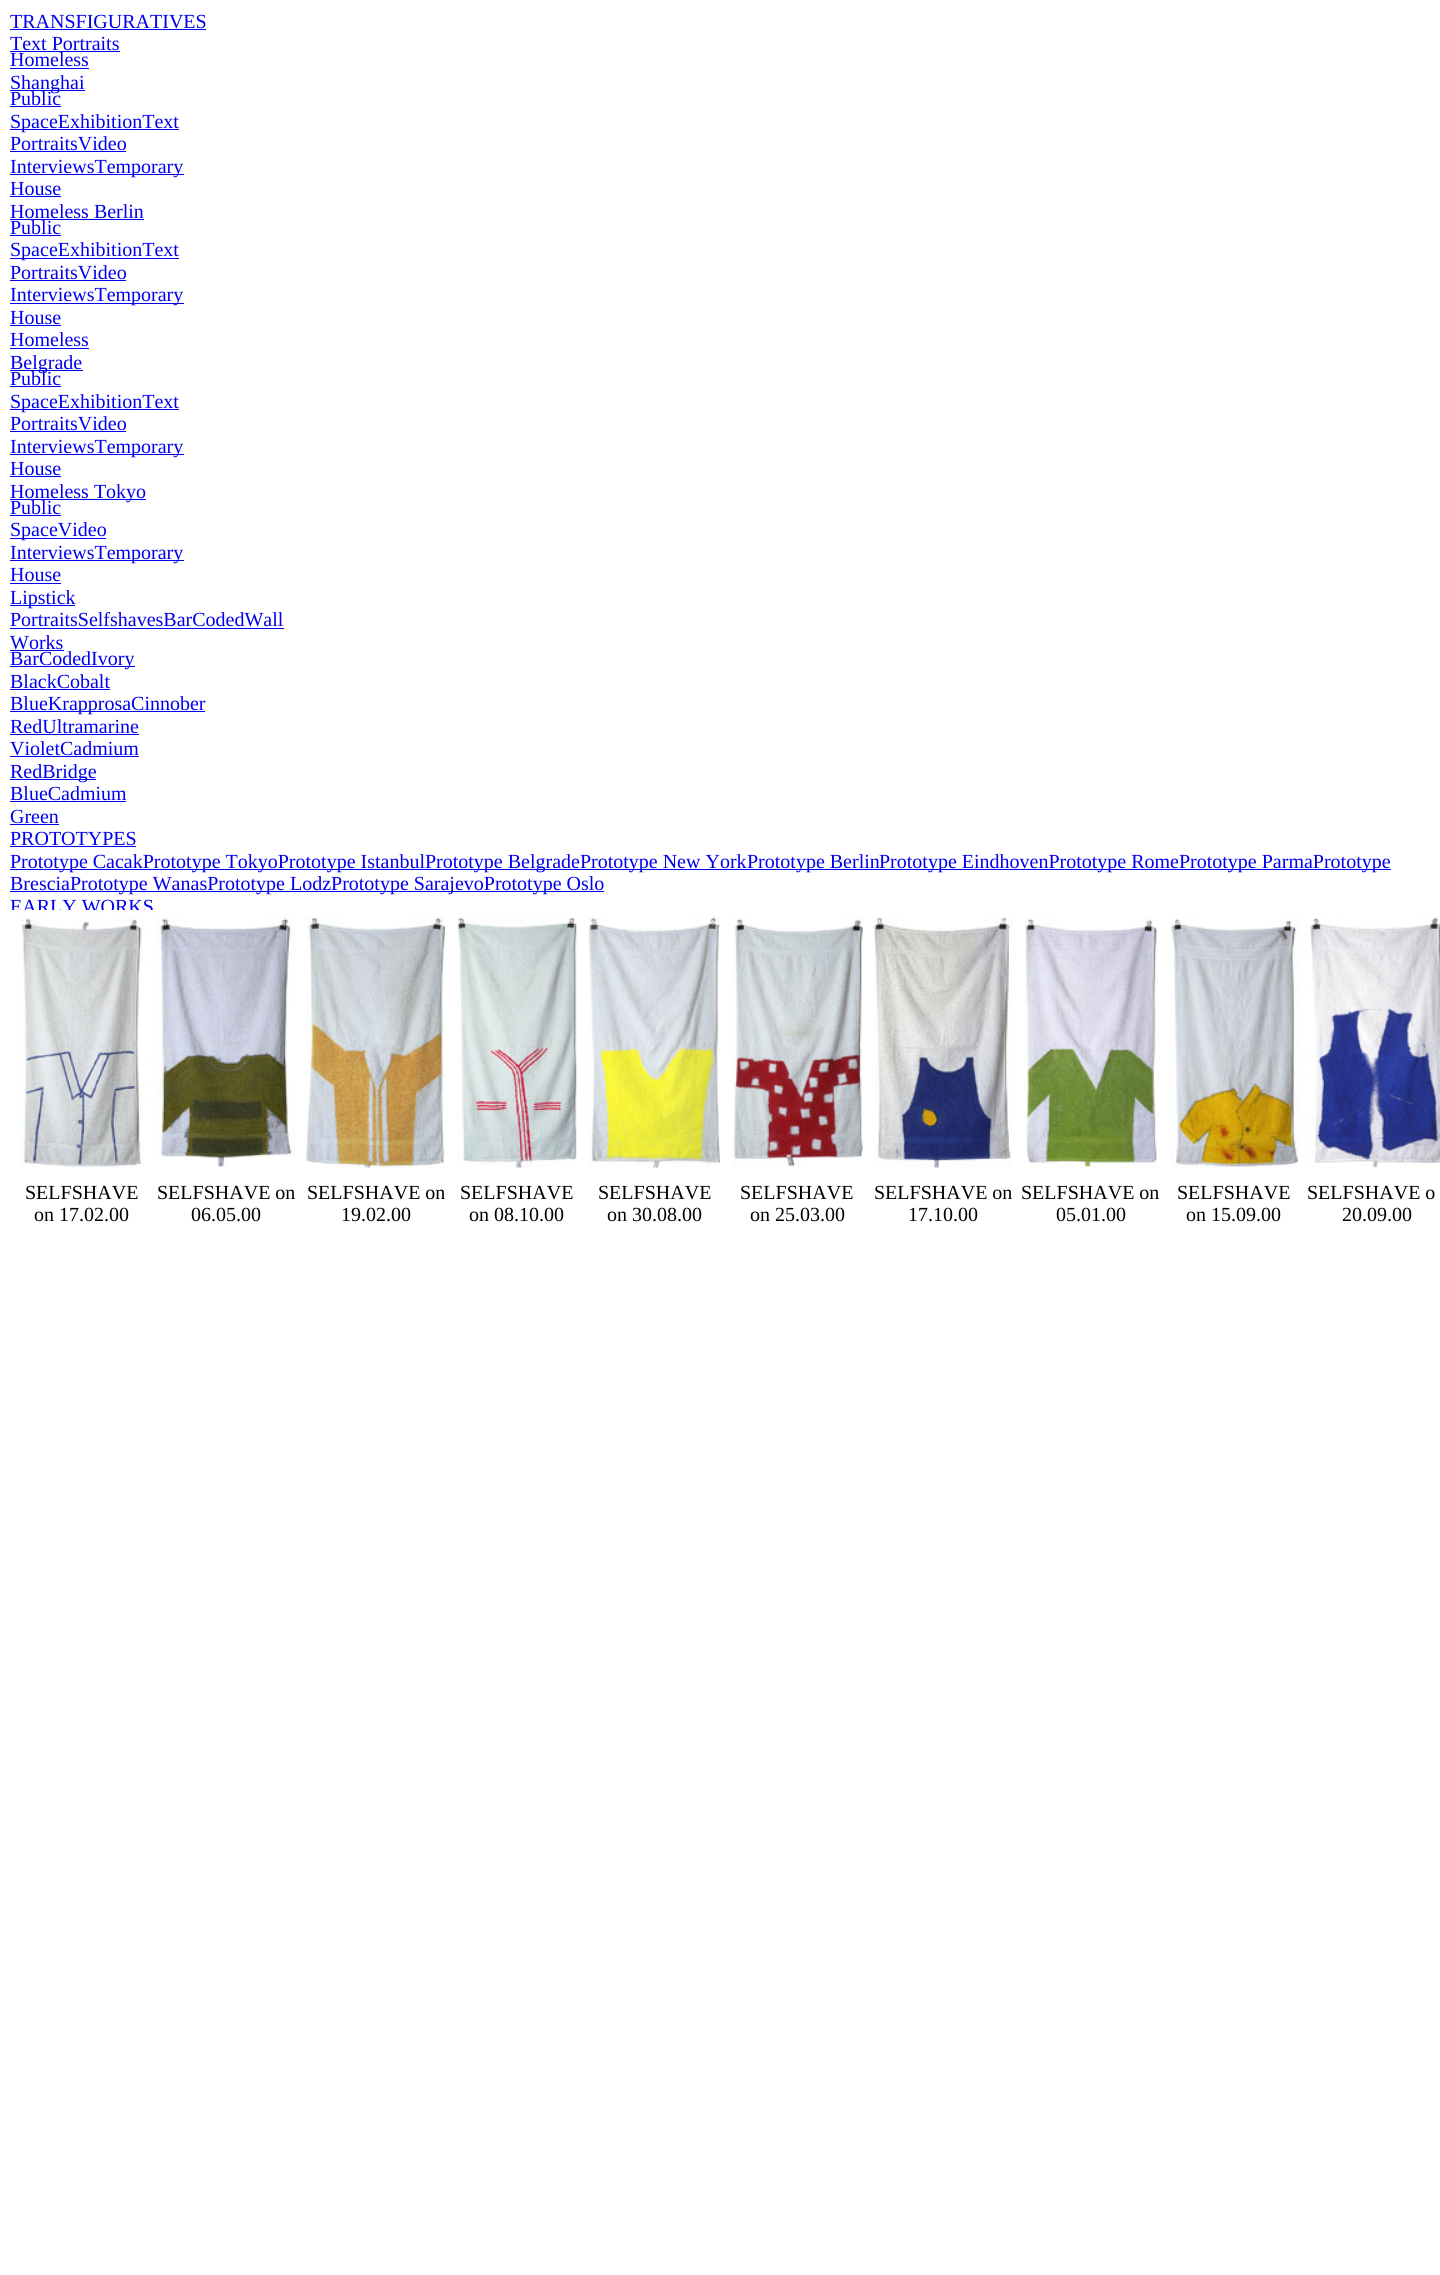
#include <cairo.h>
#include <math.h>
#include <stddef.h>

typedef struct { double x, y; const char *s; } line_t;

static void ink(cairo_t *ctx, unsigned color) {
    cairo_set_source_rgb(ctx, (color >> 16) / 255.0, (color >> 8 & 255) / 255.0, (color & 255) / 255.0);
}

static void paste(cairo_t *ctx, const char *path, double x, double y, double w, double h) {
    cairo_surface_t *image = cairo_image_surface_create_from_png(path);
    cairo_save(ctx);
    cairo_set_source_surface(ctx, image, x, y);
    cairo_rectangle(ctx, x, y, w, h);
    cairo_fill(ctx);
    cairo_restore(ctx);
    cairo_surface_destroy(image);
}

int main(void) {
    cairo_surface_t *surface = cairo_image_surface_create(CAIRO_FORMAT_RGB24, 1440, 2275);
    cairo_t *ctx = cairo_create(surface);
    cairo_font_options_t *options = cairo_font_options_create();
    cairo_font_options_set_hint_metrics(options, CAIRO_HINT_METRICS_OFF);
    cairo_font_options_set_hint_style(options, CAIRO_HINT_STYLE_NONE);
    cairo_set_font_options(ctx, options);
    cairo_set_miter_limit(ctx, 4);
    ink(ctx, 0xFFFFFF);
    cairo_paint(ctx);
    cairo_select_font_face(ctx, "Liberation Serif", CAIRO_FONT_SLANT_NORMAL, CAIRO_FONT_WEIGHT_NORMAL);
    cairo_set_font_size(ctx, 20);
    ink(ctx, 0x0000EE);
    cairo_move_to(ctx, 10, 28);
    cairo_show_text(ctx, "TRANSFIGURATIVES");
    cairo_rectangle(ctx, 10, 29, 196, 1);
    cairo_fill(ctx);
    cairo_move_to(ctx, 10, 50);
    cairo_show_text(ctx, "Text Portraits");
    cairo_rectangle(ctx, 10, 51, 110, 1);
    cairo_fill(ctx);
    cairo_move_to(ctx, 10, 66);
    cairo_show_text(ctx, "Homeless");
    cairo_rectangle(ctx, 10, 68, 79, 1);
    cairo_fill(ctx);
    cairo_rectangle(ctx, 10, 90, 75, 1);
    cairo_fill(ctx);
    cairo_move_to(ctx, 10, 89);
    cairo_show_text(ctx, "Shanghai");
    cairo_move_to(ctx, 10, 105);
    cairo_show_text(ctx, "Public");
    cairo_rectangle(ctx, 10, 106, 51, 1);
    cairo_fill(ctx);
    cairo_rectangle(ctx, 10, 129, 169, 1);
    cairo_fill(ctx);
    cairo_move_to(ctx, 10, 128);
    cairo_show_text(ctx, "SpaceExhibitionText");
    cairo_move_to(ctx, 10, 150);
    cairo_show_text(ctx, "PortraitsVideo");
    cairo_rectangle(ctx, 10, 151, 116, 1);
    cairo_fill(ctx);
    cairo_rectangle(ctx, 10, 174, 174, 1);
    cairo_fill(ctx);
    cairo_move_to(ctx, 10, 173);
    cairo_show_text(ctx, "InterviewsTemporary");
    cairo_move_to(ctx, 10, 195);
    cairo_show_text(ctx, "House");
    cairo_rectangle(ctx, 10, 196, 51, 1);
    cairo_fill(ctx);
    cairo_move_to(ctx, 10, 218);
    cairo_show_text(ctx, "Homeless Berlin");
    cairo_rectangle(ctx, 10, 219, 134, 1);
    cairo_fill(ctx);
    cairo_move_to(ctx, 10, 234);
    cairo_show_text(ctx, "Public");
    cairo_rectangle(ctx, 10, 235, 51, 1);
    cairo_fill(ctx);
    cairo_rectangle(ctx, 10, 258, 169, 1);
    cairo_fill(ctx);
    cairo_move_to(ctx, 10, 256);
    cairo_show_text(ctx, "SpaceExhibitionText");
    cairo_move_to(ctx, 10, 279);
    cairo_show_text(ctx, "PortraitsVideo");
    cairo_rectangle(ctx, 10, 280, 116, 1);
    cairo_fill(ctx);
    cairo_rectangle(ctx, 10, 303, 174, 1);
    cairo_fill(ctx);
    cairo_move_to(ctx, 10, 301);
    cairo_show_text(ctx, "InterviewsTemporary");
    cairo_move_to(ctx, 10, 324);
    cairo_show_text(ctx, "House");
    cairo_rectangle(ctx, 10, 325, 51, 1);
    cairo_fill(ctx);
    cairo_move_to(ctx, 10, 346);
    cairo_show_text(ctx, "Homeless");
    cairo_rectangle(ctx, 10, 348, 79, 1);
    cairo_fill(ctx);
    cairo_rectangle(ctx, 10, 370, 73, 1);
    cairo_fill(ctx);
    cairo_move_to(ctx, 10, 369);
    cairo_show_text(ctx, "Belgrade");
    cairo_move_to(ctx, 10, 385);
    cairo_show_text(ctx, "Public");
    cairo_rectangle(ctx, 10, 386, 51, 1);
    cairo_fill(ctx);
    cairo_rectangle(ctx, 10, 409, 169, 1);
    cairo_fill(ctx);
    cairo_move_to(ctx, 10, 408);
    cairo_show_text(ctx, "SpaceExhibitionText");
    cairo_move_to(ctx, 10, 430);
    cairo_show_text(ctx, "PortraitsVideo");
    cairo_rectangle(ctx, 10, 431, 116, 1);
    cairo_fill(ctx);
    cairo_rectangle(ctx, 10, 454, 174, 1);
    cairo_fill(ctx);
    cairo_move_to(ctx, 10, 453);
    cairo_show_text(ctx, "InterviewsTemporary");
    cairo_move_to(ctx, 10, 475);
    cairo_show_text(ctx, "House");
    cairo_rectangle(ctx, 10, 476, 51, 1);
    cairo_fill(ctx);
    cairo_rectangle(ctx, 10, 499, 136, 1);
    cairo_fill(ctx);
    cairo_move_to(ctx, 10, 498);
    cairo_show_text(ctx, "Homeless Tokyo");
    cairo_move_to(ctx, 10, 514);
    cairo_show_text(ctx, "Public");
    cairo_rectangle(ctx, 10, 515, 51, 1);
    cairo_fill(ctx);
    cairo_rectangle(ctx, 10, 538, 96, 1);
    cairo_fill(ctx);
    cairo_move_to(ctx, 10, 536);
    cairo_show_text(ctx, "SpaceVideo");
    cairo_rectangle(ctx, 10, 560, 174, 1);
    cairo_fill(ctx);
    cairo_move_to(ctx, 10, 559);
    cairo_show_text(ctx, "InterviewsTemporary");
    cairo_move_to(ctx, 10, 581);
    cairo_show_text(ctx, "House");
    cairo_rectangle(ctx, 10, 583, 51, 1);
    cairo_fill(ctx);
    cairo_rectangle(ctx, 10, 605, 65, 1);
    cairo_fill(ctx);
    cairo_move_to(ctx, 10, 604);
    cairo_show_text(ctx, "Lipstick");
    cairo_move_to(ctx, 10, 626);
    cairo_show_text(ctx, "PortraitsSelfshavesBarCodedWall");
    cairo_rectangle(ctx, 10, 628, 274, 1);
    cairo_fill(ctx);
    cairo_move_to(ctx, 10, 649);
    cairo_show_text(ctx, "Works");
    cairo_rectangle(ctx, 10, 650, 54, 1);
    cairo_fill(ctx);
    cairo_rectangle(ctx, 10, 666, 125, 1);
    cairo_fill(ctx);
    cairo_move_to(ctx, 10, 665);
    cairo_show_text(ctx, "BarCodedIvory");
    cairo_move_to(ctx, 10, 688);
    cairo_show_text(ctx, "BlackCobalt");
    cairo_rectangle(ctx, 10, 689, 100, 1);
    cairo_fill(ctx);
    cairo_rectangle(ctx, 10, 711, 195, 1);
    cairo_fill(ctx);
    cairo_move_to(ctx, 10, 710);
    cairo_show_text(ctx, "BlueKrapprosaCinnober");
    cairo_move_to(ctx, 10, 733);
    cairo_show_text(ctx, "RedUltramarine");
    cairo_rectangle(ctx, 10, 734, 129, 1);
    cairo_fill(ctx);
    cairo_move_to(ctx, 10, 755);
    cairo_show_text(ctx, "VioletCadmium");
    cairo_rectangle(ctx, 10, 756, 129, 1);
    cairo_fill(ctx);
    cairo_rectangle(ctx, 10, 779, 86, 1);
    cairo_fill(ctx);
    cairo_move_to(ctx, 10, 778);
    cairo_show_text(ctx, "RedBridge");
    cairo_move_to(ctx, 10, 800);
    cairo_show_text(ctx, "BlueCadmium");
    cairo_rectangle(ctx, 10, 801, 116, 1);
    cairo_fill(ctx);
    cairo_move_to(ctx, 10, 823);
    cairo_show_text(ctx, "Green");
    cairo_rectangle(ctx, 10, 824, 49, 1);
    cairo_fill(ctx);
    cairo_move_to(ctx, 10, 845);
    cairo_show_text(ctx, "PROTOTYPES");
    cairo_rectangle(ctx, 10, 846, 126, 1);
    cairo_fill(ctx);
    cairo_rectangle(ctx, 10, 869, 736, 1);
    cairo_fill(ctx);
    cairo_move_to(ctx, 10, 868);
    cairo_show_text(ctx, "Prototype CacakPrototype TokyoPrototype IstanbulPrototype BelgradePrototype New York");
    cairo_rectangle(ctx, 746, 869, 133, 1);
    cairo_fill(ctx);
    cairo_move_to(ctx, 747, 868);
    cairo_show_text(ctx, "Prototype Berlin");
    cairo_rectangle(ctx, 879, 869, 512, 1);
    cairo_fill(ctx);
    cairo_move_to(ctx, 879, 868);
    cairo_show_text(ctx, "Prototype EindhovenPrototype RomePrototype ParmaPrototype");
    cairo_rectangle(ctx, 10, 891, 594, 1);
    cairo_fill(ctx);
    cairo_move_to(ctx, 10, 890);
    cairo_show_text(ctx, "BresciaPrototype WanasPrototype LodzPrototype SarajevoPrototype Oslo");
    cairo_move_to(ctx, 10, 913);
    cairo_show_text(ctx, "EARLY WORKS");
    ink(ctx, 0xFFFFFF);
    cairo_rectangle(ctx, 10, 910, 143, 4);
    cairo_fill(ctx);
    paste(ctx, "media/1.png", 17, 917, 128, 251);
    paste(ctx, "media/2.png", 156, 917, 139, 251);
    paste(ctx, "media/3.png", 306, 917, 139, 251);
    paste(ctx, "media/4.png", 457, 917, 120, 251);
    paste(ctx, "media/5.png", 588, 917, 132, 251);
    paste(ctx, "media/6.png", 732, 917, 131, 251);
    paste(ctx, "media/7.png", 873, 917, 140, 251);
    paste(ctx, "media/8.png", 1024, 917, 134, 251);
    paste(ctx, "media/9.png", 1170, 917, 129, 251);
    paste(ctx, "media/10.png", 1310, 917, 130, 251);
    ink(ctx, 0x000000);
    {
        static const line_t items[] = {
            {25, 1199, "SELFSHAVE"},
            {34, 1221, "on 17.02.00"},
            {157, 1199, "SELFSHAVE on"},
            {191, 1221, "06.05.00"},
            {307, 1199, "SELFSHAVE on"},
            {341, 1221, "19.02.00"},
            {460, 1199, "SELFSHAVE"},
            {469, 1221, "on 08.10.00"},
            {598, 1199, "SELFSHAVE"},
            {607, 1221, "on 30.08.00"},
            {740, 1199, "SELFSHAVE"},
            {750, 1221, "on 25.03.00"},
            {874, 1199, "SELFSHAVE on"},
            {908, 1221, "17.10.00"},
            {1021, 1199, "SELFSHAVE on"},
            {1056, 1221, "05.01.00"},
            {1177, 1199, "SELFSHAVE"},
            {1186, 1221, "on 15.09.00"},
            {1307, 1199, "SELFSHAVE o"},
            {1342, 1221, "20.09.00"},
        };
        for (size_t i = 0; i < sizeof items / sizeof *items; i++) {
            cairo_move_to(ctx, items[i].x, items[i].y);
            cairo_show_text(ctx, items[i].s);
        }
    }
    cairo_surface_write_to_png(surface, "image.png");
    cairo_font_options_destroy(options);
    cairo_destroy(ctx);
    cairo_surface_destroy(surface);
    return 0;
}
